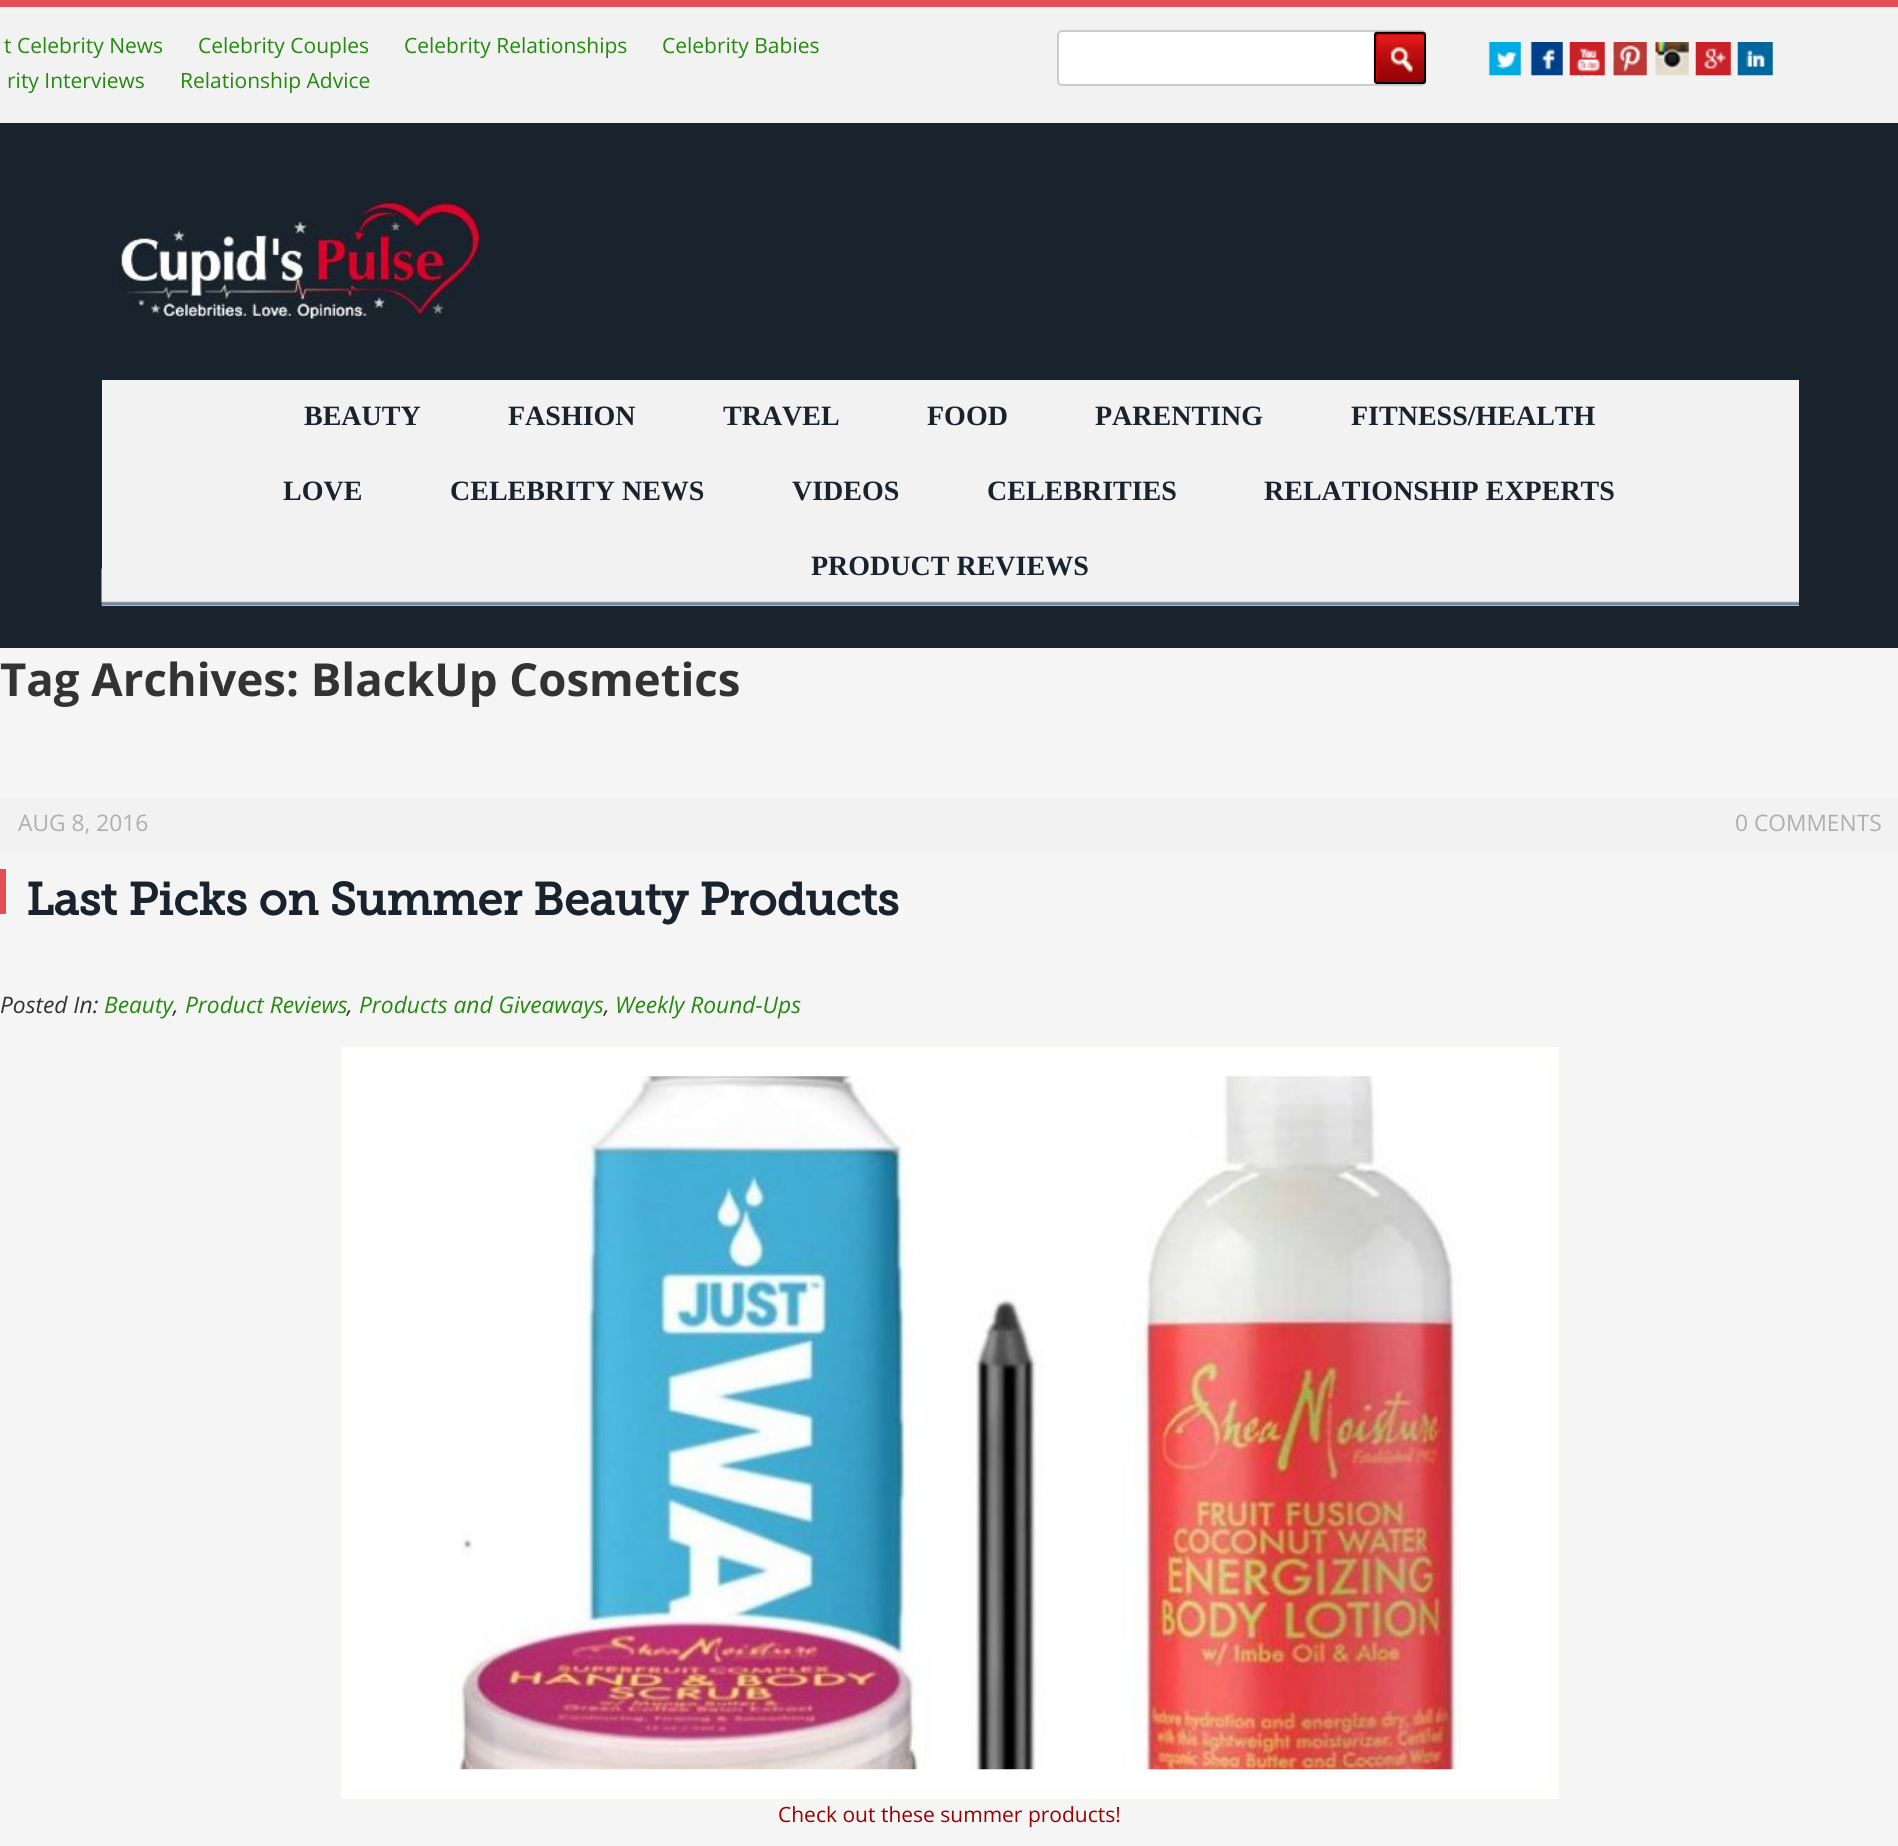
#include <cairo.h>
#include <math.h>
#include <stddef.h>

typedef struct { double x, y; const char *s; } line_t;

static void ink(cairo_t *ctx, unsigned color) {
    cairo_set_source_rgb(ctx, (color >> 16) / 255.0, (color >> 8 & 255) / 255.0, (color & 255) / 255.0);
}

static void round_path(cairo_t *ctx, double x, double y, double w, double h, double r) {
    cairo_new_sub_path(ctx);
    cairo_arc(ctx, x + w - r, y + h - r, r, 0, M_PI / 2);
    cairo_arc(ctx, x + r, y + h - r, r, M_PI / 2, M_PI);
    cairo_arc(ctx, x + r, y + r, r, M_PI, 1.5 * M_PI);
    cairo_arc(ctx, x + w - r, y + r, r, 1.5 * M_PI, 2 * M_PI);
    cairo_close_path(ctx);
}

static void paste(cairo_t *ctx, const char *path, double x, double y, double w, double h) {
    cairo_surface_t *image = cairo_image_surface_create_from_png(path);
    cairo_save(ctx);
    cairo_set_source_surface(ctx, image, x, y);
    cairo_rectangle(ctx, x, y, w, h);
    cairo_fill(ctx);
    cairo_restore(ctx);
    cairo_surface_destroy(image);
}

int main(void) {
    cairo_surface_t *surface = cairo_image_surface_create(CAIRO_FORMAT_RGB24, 1898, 1846);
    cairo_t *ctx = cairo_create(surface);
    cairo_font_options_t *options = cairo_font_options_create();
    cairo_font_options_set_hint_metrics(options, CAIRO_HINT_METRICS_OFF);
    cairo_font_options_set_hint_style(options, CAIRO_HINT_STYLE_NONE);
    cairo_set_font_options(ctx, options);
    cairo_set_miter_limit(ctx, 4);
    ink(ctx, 0xF5F5F5);
    cairo_paint(ctx);
    ink(ctx, 0xF2F2F2);
    cairo_rectangle(ctx, 0, 7, 1898, 116);
    cairo_fill(ctx);
    ink(ctx, 0xE54E53);
    cairo_rectangle(ctx, 0, 0, 1898, 7);
    cairo_fill(ctx);
    cairo_select_font_face(ctx, "Open Sans", CAIRO_FONT_SLANT_NORMAL, CAIRO_FONT_WEIGHT_NORMAL);
    cairo_set_font_size(ctx, 21);
    ink(ctx, 0x24890D);
    {
        static const line_t items[] = {
            {4, 53, "t Celebrity News"},
            {198, 53, "Celebrity Couples"},
            {404, 53, "Celebrity Relationships"},
            {662, 53, "Celebrity Babies"},
            {7, 88, "rity Interviews"},
            {180, 88, "Relationship Advice"},
        };
        for (size_t i = 0; i < sizeof items / sizeof *items; i++) {
            cairo_move_to(ctx, items[i].x, items[i].y);
            cairo_show_text(ctx, items[i].s);
        }
    }
    ink(ctx, 0xFFFFFF);
    round_path(ctx, 1058, 31, 367, 54, 4);
    cairo_fill_preserve(ctx);
    ink(ctx, 0xCCCCCC);
    cairo_stroke(ctx);
    paste(ctx, "media/1.png", 1373, 31, 54, 53);
    round_path(ctx, 1375, 33, 50, 50, 3);
    ink(ctx, 0x000000);
    cairo_stroke(ctx);
    paste(ctx, "media/2.png", 1488, 42, 33, 34);
    paste(ctx, "media/3.png", 1530, 42, 33, 34);
    paste(ctx, "media/4.png", 1569, 42, 36, 34);
    paste(ctx, "media/5.png", 1612, 42, 35, 34);
    paste(ctx, "media/6.png", 1655, 42, 34, 34);
    paste(ctx, "media/7.png", 1695, 42, 36, 34);
    paste(ctx, "media/8.png", 1737, 42, 36, 34);
    ink(ctx, 0x19232D);
    cairo_rectangle(ctx, 0, 123, 1898, 525);
    cairo_fill(ctx);
    paste(ctx, "media/9.png", 119, 199, 361, 120);
    ink(ctx, 0xF2F2F2);
    cairo_rectangle(ctx, 102, 380, 1697, 226);
    cairo_fill(ctx);
    paste(ctx, "media/10.png", 101, 568, 1698, 38);
    cairo_select_font_face(ctx, "Liberation Serif", CAIRO_FONT_SLANT_NORMAL, CAIRO_FONT_WEIGHT_BOLD);
    cairo_set_font_size(ctx, 28);
    ink(ctx, 0x19232D);
    {
        static const line_t items[] = {
            {304, 425, "BEAUTY"},
            {508, 425, "FASHION"},
            {723, 425, "TRAVEL"},
            {927, 425, "FOOD"},
            {1095, 425, "PARENTING"},
            {1351, 425, "FITNESS/HEALTH"},
            {283, 500, "LOVE"},
            {450, 500, "CELEBRITY NEWS"},
            {792, 500, "VIDEOS"},
            {987, 500, "CELEBRITIES"},
            {1264, 500, "RELATIONSHIP EXPERTS"},
            {811, 575, "PRODUCT REVIEWS"},
        };
        for (size_t i = 0; i < sizeof items / sizeof *items; i++) {
            cairo_move_to(ctx, items[i].x, items[i].y);
            cairo_show_text(ctx, items[i].s);
        }
    }
    cairo_select_font_face(ctx, "Open Sans", CAIRO_FONT_SLANT_NORMAL, CAIRO_FONT_WEIGHT_BOLD);
    cairo_set_font_size(ctx, 45.5);
    ink(ctx, 0x333333);
    cairo_move_to(ctx, 0, 696);
    cairo_show_text(ctx, "Tag Archives: BlackUp Cosmetics");
    ink(ctx, 0xF2F2F2);
    cairo_rectangle(ctx, 0, 798, 1898, 54);
    cairo_fill(ctx);
    cairo_select_font_face(ctx, "Open Sans", CAIRO_FONT_SLANT_NORMAL, CAIRO_FONT_WEIGHT_NORMAL);
    cairo_set_font_size(ctx, 22.75);
    ink(ctx, 0xAFAFAF);
    cairo_move_to(ctx, 18, 831);
    cairo_show_text(ctx, "AUG 8, 2016");
    cairo_move_to(ctx, 1735, 831);
    cairo_show_text(ctx, "0 COMMENTS");
    ink(ctx, 0xE54E53);
    cairo_rectangle(ctx, 0, 869, 6, 45);
    cairo_fill(ctx);
    cairo_select_font_face(ctx, "Museo Slab", CAIRO_FONT_SLANT_NORMAL, CAIRO_FONT_WEIGHT_BOLD);
    cairo_set_font_size(ctx, 45.5);
    ink(ctx, 0x19232D);
    cairo_move_to(ctx, 26, 915);
    cairo_show_text(ctx, "Last Picks on Summer Beauty Products");
    cairo_select_font_face(ctx, "Open Sans", CAIRO_FONT_SLANT_ITALIC, CAIRO_FONT_WEIGHT_NORMAL);
    cairo_set_font_size(ctx, 22.75);
    ink(ctx, 0x333333);
    cairo_move_to(ctx, 0, 1013);
    cairo_show_text(ctx, "Posted In:");
    ink(ctx, 0x24890D);
    {
        static const line_t items[] = {
            {104, 1013, "Beauty"},
            {185, 1013, "Product Reviews"},
            {359, 1013, "Products and Giveaways"},
            {615, 1013, "Weekly Round-Ups"},
        };
        for (size_t i = 0; i < sizeof items / sizeof *items; i++) {
            cairo_move_to(ctx, items[i].x, items[i].y);
            cairo_show_text(ctx, items[i].s);
        }
    }
    ink(ctx, 0x333333);
    {
        static const line_t items[] = {
            {173, 1013, ","},
            {347, 1013, ","},
            {604, 1013, ","},
        };
        for (size_t i = 0; i < sizeof items / sizeof *items; i++) {
            cairo_move_to(ctx, items[i].x, items[i].y);
            cairo_show_text(ctx, items[i].s);
        }
    }
    ink(ctx, 0xFFFFFF);
    cairo_rectangle(ctx, 347, 1053, 1206, 740);
    cairo_fill_preserve(ctx);
    ink(ctx, 0xFEFFFD);
    cairo_set_line_width(ctx, 12);
    cairo_stroke(ctx);
    paste(ctx, "media/11.png", 449, 1076, 1012, 694);
    cairo_select_font_face(ctx, "Open Sans", CAIRO_FONT_SLANT_NORMAL, CAIRO_FONT_WEIGHT_NORMAL);
    cairo_set_font_size(ctx, 21);
    ink(ctx, 0x990000);
    cairo_move_to(ctx, 778, 1822);
    cairo_show_text(ctx, "Check out these summer products!");
    cairo_surface_write_to_png(surface, "image.png");
    cairo_font_options_destroy(options);
    cairo_destroy(ctx);
    cairo_surface_destroy(surface);
    return 0;
}
